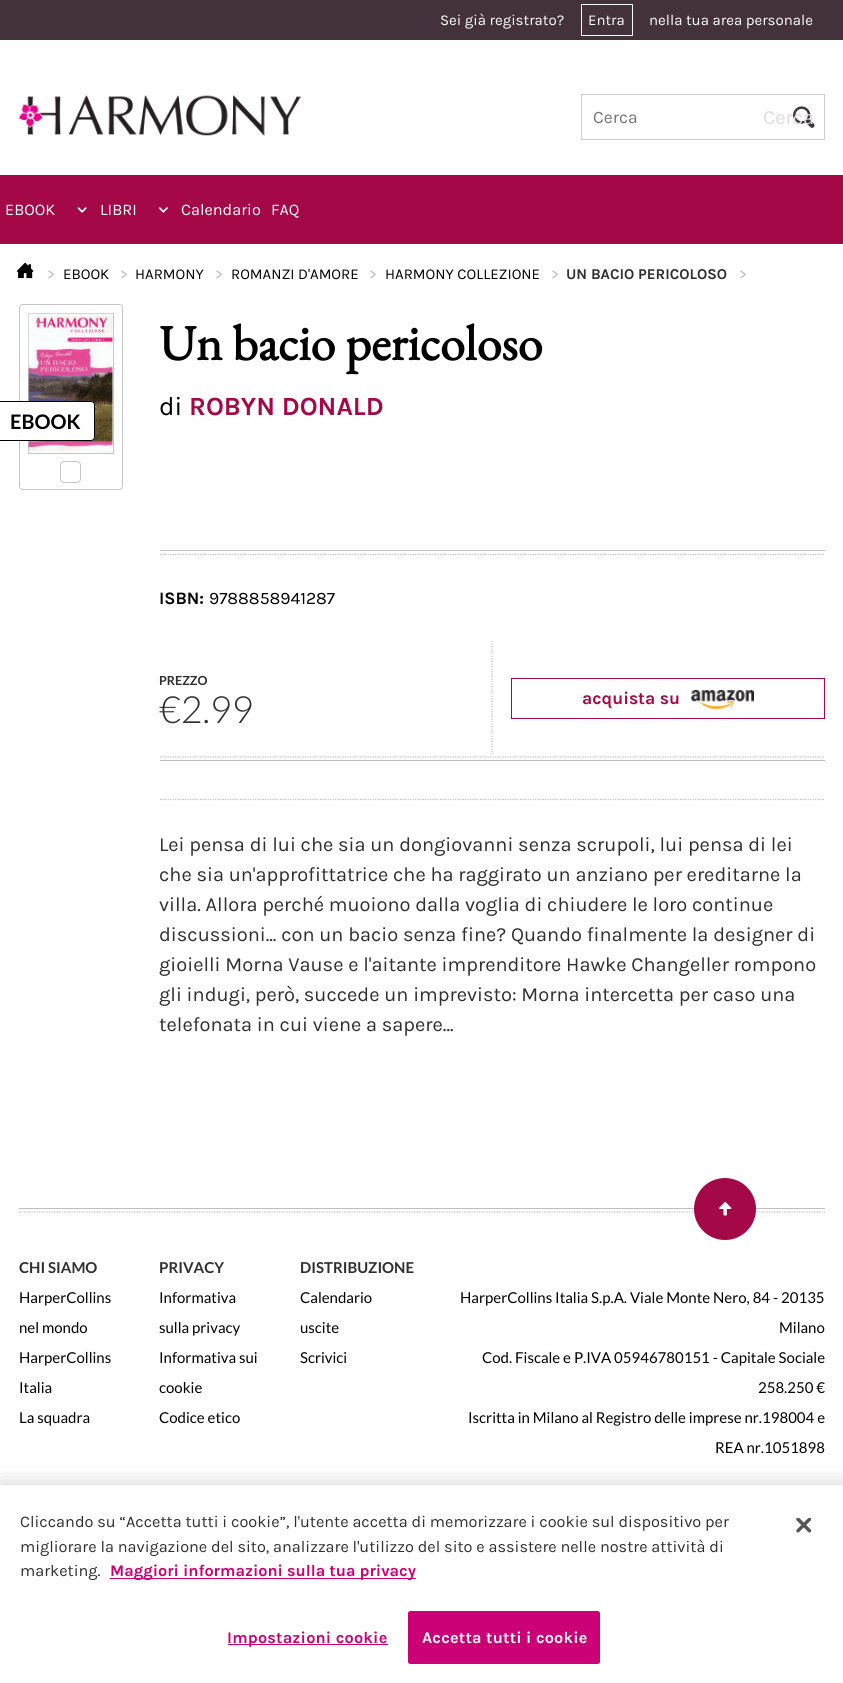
#include <cairo.h>
#include <math.h>
#include <stddef.h>

typedef struct { double x, y; const char *s; } line_t;

static void ink(cairo_t *ctx, unsigned color) {
    cairo_set_source_rgb(ctx, (color >> 16) / 255.0, (color >> 8 & 255) / 255.0, (color & 255) / 255.0);
}

static void write_spaced(cairo_t *ctx, double x, double y, const char *s, double letter, double word) {
    cairo_move_to(ctx, x, y);
    while (*s) {
        char ch[5] = {0};
        int n = 0;
        do ch[n++] = *s++; while ((*s & 0xC0) == 0x80);
        cairo_show_text(ctx, ch);
        cairo_rel_move_to(ctx, letter + word * (*ch == ' '), 0);
    }
}

static void round_path(cairo_t *ctx, double x, double y, double w, double h, double r) {
    cairo_new_sub_path(ctx);
    cairo_arc(ctx, x + w - r, y + h - r, r, 0, M_PI / 2);
    cairo_arc(ctx, x + r, y + h - r, r, M_PI / 2, M_PI);
    cairo_arc(ctx, x + r, y + r, r, M_PI, 1.5 * M_PI);
    cairo_arc(ctx, x + w - r, y + r, r, 1.5 * M_PI, 2 * M_PI);
    cairo_close_path(ctx);
}

static void blur_box(cairo_t *ctx, double x, double y, double w, double h, double r, double blur, double alpha) {
    cairo_push_group_with_content(ctx, CAIRO_CONTENT_ALPHA);
    cairo_set_operator(ctx, CAIRO_OPERATOR_SOURCE);
    for (int i = 15; i >= -15 && fmin(w, h) + blur * i / 3 > 0; i -= 2) {
        double e = blur * i / 6;
        cairo_set_source_rgba(ctx, 0, 0, 0, alpha * erfc((i - 1) / 8.5) / 2);
        round_path(ctx, x - e, y - e, w + 2 * e, h + 2 * e, fmax(0, fmin(r + e + blur * .6, fmin(w, h) / 2 + e)));
        cairo_fill(ctx);
    }
    cairo_pattern_t *soft = cairo_pop_group(ctx);
    cairo_mask(ctx, soft);
    cairo_pattern_destroy(soft);
}

static void paste(cairo_t *ctx, const char *path, double x, double y, double w, double h) {
    cairo_surface_t *image = cairo_image_surface_create_from_png(path);
    cairo_save(ctx);
    cairo_set_source_surface(ctx, image, x, y);
    cairo_rectangle(ctx, x, y, w, h);
    cairo_fill(ctx);
    cairo_restore(ctx);
    cairo_surface_destroy(image);
}

int main(void) {
    cairo_surface_t *surface = cairo_image_surface_create(CAIRO_FORMAT_RGB24, 843, 1683);
    cairo_t *ctx = cairo_create(surface);
    cairo_font_options_t *options = cairo_font_options_create();
    cairo_font_options_set_hint_metrics(options, CAIRO_HINT_METRICS_OFF);
    cairo_font_options_set_hint_style(options, CAIRO_HINT_STYLE_NONE);
    cairo_set_font_options(ctx, options);
    cairo_set_miter_limit(ctx, 4);
    ink(ctx, 0xFFFFFF);
    cairo_paint(ctx);
    ink(ctx, 0x43323B);
    cairo_rectangle(ctx, 0, 0, 843, 40);
    cairo_fill(ctx);
    cairo_select_font_face(ctx, "Karla", CAIRO_FONT_SLANT_NORMAL, CAIRO_FONT_WEIGHT_NORMAL);
    cairo_set_font_size(ctx, 15);
    ink(ctx, 0xFFFFFF);
    cairo_move_to(ctx, 440, 25);
    cairo_show_text(ctx, "Sei già registrato?");
    cairo_rectangle(ctx, 581.5, 4.5, 51, 31);
    cairo_set_line_width(ctx, 1);
    cairo_stroke(ctx);
    cairo_move_to(ctx, 588, 25);
    cairo_show_text(ctx, "Entra");
    cairo_move_to(ctx, 649, 25);
    cairo_show_text(ctx, "nella tua area personale");
    paste(ctx, "media/1.png", 18, 95, 284, 41);
    cairo_rectangle(ctx, 581.5, 94.5, 243, 45);
    ink(ctx, 0xCCCCCC);
    cairo_stroke(ctx);
    cairo_set_font_size(ctx, 17.5);
    ink(ctx, 0x757575);
    cairo_move_to(ctx, 593, 123);
    cairo_show_text(ctx, "Cerca");
    paste(ctx, "media/2.png", 793, 106, 22, 22);
    cairo_set_font_size(ctx, 20);
    ink(ctx, 0xDEDBDC);
    cairo_move_to(ctx, 763, 124);
    cairo_show_text(ctx, "Cerca");
    ink(ctx, 0xA40847);
    cairo_rectangle(ctx, 0, 175, 843, 69);
    cairo_fill(ctx);
    cairo_set_font_size(ctx, 16.25);
    ink(ctx, 0xFFFFFF);
    cairo_move_to(ctx, 5, 215);
    cairo_show_text(ctx, "EBOOK");
    paste(ctx, "media/3.png", 77, 207, 10, 6);
    cairo_move_to(ctx, 100, 215);
    cairo_show_text(ctx, "LIBRI");
    paste(ctx, "media/4.png", 158, 207, 10, 6);
    cairo_move_to(ctx, 181, 215);
    cairo_show_text(ctx, "Calendario");
    cairo_move_to(ctx, 271, 215);
    cairo_show_text(ctx, "FAQ");
    paste(ctx, "media/5.png", 16, 262, 18, 17);
    cairo_set_font_size(ctx, 15);
    ink(ctx, 0xB8B8B8);
    cairo_move_to(ctx, 47, 279);
    cairo_show_text(ctx, ">");
    ink(ctx, 0x000000);
    cairo_move_to(ctx, 63, 279);
    cairo_show_text(ctx, "EBOOK");
    ink(ctx, 0xB8B8B8);
    cairo_move_to(ctx, 120, 279);
    cairo_show_text(ctx, ">");
    ink(ctx, 0x000000);
    cairo_move_to(ctx, 135, 279);
    cairo_show_text(ctx, "HARMONY");
    ink(ctx, 0xB8B8B8);
    cairo_move_to(ctx, 215, 279);
    cairo_show_text(ctx, ">");
    ink(ctx, 0x000000);
    cairo_move_to(ctx, 231, 279);
    cairo_show_text(ctx, "ROMANZI D'AMORE");
    ink(ctx, 0xB8B8B8);
    cairo_move_to(ctx, 369, 279);
    cairo_show_text(ctx, ">");
    ink(ctx, 0x000000);
    cairo_move_to(ctx, 385, 279);
    cairo_show_text(ctx, "HARMONY COLLEZIONE");
    ink(ctx, 0xB8B8B8);
    cairo_move_to(ctx, 551, 279);
    cairo_show_text(ctx, ">");
    cairo_select_font_face(ctx, "Karla", CAIRO_FONT_SLANT_NORMAL, CAIRO_FONT_WEIGHT_BOLD);
    ink(ctx, 0x2F2F2F);
    cairo_move_to(ctx, 566, 279);
    cairo_show_text(ctx, "UN BACIO PERICOLOSO");
    cairo_select_font_face(ctx, "Karla", CAIRO_FONT_SLANT_NORMAL, CAIRO_FONT_WEIGHT_NORMAL);
    ink(ctx, 0xB8B8B8);
    cairo_move_to(ctx, 739, 279);
    cairo_show_text(ctx, ">");
    round_path(ctx, 19.5, 304.5, 103, 185, 3.5);
    ink(ctx, 0xC6C6C6);
    cairo_stroke(ctx);
    cairo_rectangle(ctx, 28.5, 313.5, 85, 140);
    cairo_stroke(ctx);
    paste(ctx, "media/6.png", 28, 313, 85, 140);
    ink(ctx, 0xFFFFFF);
    cairo_new_path(ctx);
    cairo_move_to(ctx, 0, 401);
    cairo_line_to(ctx, 91, 401);
    cairo_curve_to(ctx, 93, 401, 95, 403, 95, 405);
    cairo_line_to(ctx, 95, 437);
    cairo_curve_to(ctx, 95, 439, 93, 441, 91, 441);
    cairo_line_to(ctx, 0, 441);
    cairo_close_path(ctx);
    cairo_fill(ctx);
    round_path(ctx, -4.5, 401.5, 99, 39, 3.5);
    ink(ctx, 0x000000);
    cairo_stroke(ctx);
    cairo_select_font_face(ctx, "Lato", CAIRO_FONT_SLANT_NORMAL, CAIRO_FONT_WEIGHT_BOLD);
    cairo_set_font_size(ctx, 20);
    cairo_move_to(ctx, 10, 429);
    cairo_show_text(ctx, "EBOOK");
    round_path(ctx, 60.5, 461.5, 20, 21, 3.5);
    ink(ctx, 0xC6C6C6);
    cairo_stroke(ctx);
    cairo_select_font_face(ctx, "EB Garamond", CAIRO_FONT_SLANT_NORMAL, CAIRO_FONT_WEIGHT_BOLD);
    cairo_set_font_size(ctx, 50);
    ink(ctx, 0x000000);
    cairo_move_to(ctx, 159, 360);
    cairo_show_text(ctx, "Un bacio pericoloso");
    cairo_select_font_face(ctx, "Karla", CAIRO_FONT_SLANT_NORMAL, CAIRO_FONT_WEIGHT_NORMAL);
    cairo_set_font_size(ctx, 26.25);
    cairo_move_to(ctx, 159, 415);
    cairo_show_text(ctx, "di");
    cairo_select_font_face(ctx, "Karla", CAIRO_FONT_SLANT_NORMAL, CAIRO_FONT_WEIGHT_BOLD);
    ink(ctx, 0xA40847);
    cairo_move_to(ctx, 189, 415);
    cairo_show_text(ctx, "ROBYN DONALD");
    ink(ctx, 0xBFBFBF);
    cairo_rectangle(ctx, 160, 550, 665, 1);
    cairo_fill(ctx);
    cairo_rectangle(ctx, 160, 760, 665, 1);
    cairo_fill(ctx);
    cairo_new_path(ctx);
    cairo_move_to(ctx, 160, 554.5);
    cairo_line_to(ctx, 825, 554.5);
    cairo_set_line_width(ctx, 1.2);
    cairo_set_dash(ctx, (double[]){1.25, 1.25}, 2, 0);
    cairo_stroke(ctx);
    cairo_new_path(ctx);
    cairo_move_to(ctx, 160, 757);
    cairo_line_to(ctx, 825, 757);
    cairo_stroke(ctx);
    cairo_set_font_size(ctx, 17.5);
    ink(ctx, 0x000000);
    cairo_move_to(ctx, 159, 604);
    cairo_show_text(ctx, "ISBN:");
    cairo_select_font_face(ctx, "Karla", CAIRO_FONT_SLANT_NORMAL, CAIRO_FONT_WEIGHT_NORMAL);
    cairo_move_to(ctx, 209, 604);
    cairo_show_text(ctx, "9788858941287");
    cairo_new_path(ctx);
    cairo_move_to(ctx, 492, 641);
    cairo_line_to(ctx, 492, 756);
    ink(ctx, 0xBFBFBF);
    cairo_stroke(ctx);
    cairo_select_font_face(ctx, "Lato", CAIRO_FONT_SLANT_NORMAL, CAIRO_FONT_WEIGHT_BOLD);
    cairo_set_font_size(ctx, 12.5);
    ink(ctx, 0x2F2F2F);
    cairo_move_to(ctx, 159, 685);
    cairo_show_text(ctx, "PREZZO");
    cairo_select_font_face(ctx, "Lato Light", CAIRO_FONT_SLANT_NORMAL, CAIRO_FONT_WEIGHT_NORMAL);
    cairo_set_font_size(ctx, 37.5);
    cairo_move_to(ctx, 159, 723);
    cairo_show_text(ctx, "€2.99");
    cairo_rectangle(ctx, 511.5, 678.5, 313, 40);
    ink(ctx, 0xA40847);
    cairo_set_line_width(ctx, 1);
    cairo_set_dash(ctx, NULL, 0, 0);
    cairo_stroke(ctx);
    cairo_select_font_face(ctx, "Karla", CAIRO_FONT_SLANT_NORMAL, CAIRO_FONT_WEIGHT_BOLD);
    cairo_set_font_size(ctx, 17.5);
    cairo_move_to(ctx, 582, 704);
    cairo_show_text(ctx, "acquista su");
    paste(ctx, "media/7.png", 691, 690, 63, 19);
    cairo_new_path(ctx);
    cairo_move_to(ctx, 160, 799.5);
    cairo_line_to(ctx, 825, 799.5);
    ink(ctx, 0xBFBFBF);
    cairo_set_line_width(ctx, 1.2);
    cairo_set_dash(ctx, (double[]){1.25, 1.25}, 2, 0);
    cairo_stroke(ctx);
    cairo_select_font_face(ctx, "Karla", CAIRO_FONT_SLANT_NORMAL, CAIRO_FONT_WEIGHT_NORMAL);
    cairo_set_font_size(ctx, 20);
    ink(ctx, 0x2F2F2F);
    {
        static const line_t items[] = {
            {159, 851, "Lei pensa di lui che sia un dongiovanni senza scrupoli, lui pensa di lei"},
            {159, 881, "che sia un'approfittatrice che ha raggirato un anziano per ereditarne la"},
            {159, 911, "villa. Allora perché muoiono dalla voglia di chiudere le loro continue"},
            {159, 941, "discussioni... con un bacio senza fine? Quando finalmente la designer di"},
            {159, 971, "gioielli Morna Vause e l'aitante imprenditore Hawke Changeller rompono"},
            {159, 1001, "gli indugi, però, succede un imprevisto: Morna intercetta per caso una"},
            {159, 1031, "telefonata in cui viene a sapere..."},
        };
        for (size_t i = 0; i < sizeof items / sizeof *items; i++) {
            cairo_move_to(ctx, items[i].x, items[i].y);
            cairo_show_text(ctx, items[i].s);
        }
    }
    ink(ctx, 0xBFBFBF);
    cairo_rectangle(ctx, 19, 1208, 806, 1);
    cairo_fill(ctx);
    cairo_new_path(ctx);
    cairo_move_to(ctx, 19, 1212);
    cairo_line_to(ctx, 825, 1212);
    cairo_stroke(ctx);
    ink(ctx, 0xA40847);
    cairo_arc(ctx, 725, 1209, 31, 0, 2 * M_PI);
    cairo_fill(ctx);
    paste(ctx, "media/8.png", 719, 1202, 13, 14);
    cairo_select_font_face(ctx, "Lato", CAIRO_FONT_SLANT_NORMAL, CAIRO_FONT_WEIGHT_BOLD);
    cairo_set_font_size(ctx, 15);
    ink(ctx, 0x2F2F2F);
    cairo_move_to(ctx, 19, 1273);
    cairo_show_text(ctx, "CHI SIAMO");
    cairo_select_font_face(ctx, "Lato", CAIRO_FONT_SLANT_NORMAL, CAIRO_FONT_WEIGHT_NORMAL);
    ink(ctx, 0x000000);
    {
        static const line_t items[] = {
            {19, 1303, "HarperCollins"},
            {19, 1333, "nel mondo"},
            {19, 1363, "HarperCollins"},
            {19, 1393, "Italia"},
            {19, 1423, "La squadra"},
        };
        for (size_t i = 0; i < sizeof items / sizeof *items; i++) {
            cairo_move_to(ctx, items[i].x, items[i].y);
            cairo_show_text(ctx, items[i].s);
        }
    }
    cairo_select_font_face(ctx, "Lato", CAIRO_FONT_SLANT_NORMAL, CAIRO_FONT_WEIGHT_BOLD);
    ink(ctx, 0x2F2F2F);
    cairo_move_to(ctx, 159, 1273);
    cairo_show_text(ctx, "PRIVACY");
    cairo_select_font_face(ctx, "Lato", CAIRO_FONT_SLANT_NORMAL, CAIRO_FONT_WEIGHT_NORMAL);
    ink(ctx, 0x000000);
    {
        static const line_t items[] = {
            {159, 1303, "Informativa"},
            {159, 1333, "sulla privacy"},
            {159, 1363, "Informativa sui"},
            {159, 1393, "cookie"},
            {159, 1423, "Codice etico"},
        };
        for (size_t i = 0; i < sizeof items / sizeof *items; i++) {
            cairo_move_to(ctx, items[i].x, items[i].y);
            cairo_show_text(ctx, items[i].s);
        }
    }
    cairo_select_font_face(ctx, "Lato", CAIRO_FONT_SLANT_NORMAL, CAIRO_FONT_WEIGHT_BOLD);
    ink(ctx, 0x2F2F2F);
    cairo_move_to(ctx, 300, 1273);
    cairo_show_text(ctx, "DISTRIBUZIONE");
    cairo_select_font_face(ctx, "Lato", CAIRO_FONT_SLANT_NORMAL, CAIRO_FONT_WEIGHT_NORMAL);
    ink(ctx, 0x000000);
    {
        static const line_t items[] = {
            {300, 1303, "Calendario"},
            {300, 1333, "uscite"},
            {300, 1363, "Scrivici"},
            {460, 1303, "HarperCollins Italia S.p.A. Viale Monte Nero, 84 - 20135"},
            {779, 1333, "Milano"},
            {482, 1363, "Cod. Fiscale e P.IVA 05946780151 - Capitale Sociale"},
            {758, 1393, "258.250 €"},
            {468, 1423, "Iscritta in Milano al Registro delle imprese nr.198004 e"},
            {715, 1453, "REA nr.1051898"},
        };
        for (size_t i = 0; i < sizeof items / sizeof *items; i++) {
            cairo_move_to(ctx, items[i].x, items[i].y);
            cairo_show_text(ctx, items[i].s);
        }
    }
    cairo_save(ctx);
    cairo_rectangle(ctx, 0, 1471, 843, 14);
    cairo_clip(ctx);
    ink(ctx, 0x000000);
    blur_box(ctx, 0, 1485, 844, 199, 0, 11, 0.2);
    cairo_restore(ctx);
    cairo_select_font_face(ctx, "Karla", CAIRO_FONT_SLANT_NORMAL, CAIRO_FONT_WEIGHT_NORMAL);
    cairo_set_font_size(ctx, 16.25);
    ink(ctx, 0x2F2F2F);
    {
        static const line_t items[] = {
            {20, 1527, "Cliccando su “Accetta tutti i cookie”, l'utente accetta di memorizzare i cookie sul dispositivo per"},
            {20, 1552, "migliorare la navigazione del sito, analizzare l'utilizzo del sito e assistere nelle nostre attività di"},
            {20, 1576, "marketing."},
        };
        for (size_t i = 0; i < sizeof items / sizeof *items; i++) {
            cairo_move_to(ctx, items[i].x, items[i].y);
            cairo_show_text(ctx, items[i].s);
        }
    }
    ink(ctx, 0xCB0076);
    cairo_rectangle(ctx, 110, 1578, 306, 1);
    cairo_fill(ctx);
    cairo_select_font_face(ctx, "Karla", CAIRO_FONT_SLANT_NORMAL, CAIRO_FONT_WEIGHT_BOLD);
    cairo_move_to(ctx, 110, 1576);
    cairo_show_text(ctx, "Maggiori informazioni sulla tua privacy");
    cairo_rectangle(ctx, 228, 1644, 160, 1);
    cairo_fill(ctx);
    write_spaced(ctx, 227, 1643, "Impostazioni cookie", 0.2, 0);
    round_path(ctx, 408.5, 1611.5, 191, 52, 2);
    cairo_fill_preserve(ctx);
    cairo_set_line_width(ctx, 1);
    cairo_set_dash(ctx, NULL, 0, 0);
    cairo_stroke(ctx);
    ink(ctx, 0xFFFFFF);
    write_spaced(ctx, 422, 1643, "Accetta tutti i cookie", 0.2, 0);
    paste(ctx, "media/9.png", 796, 1518, 15, 15);
    cairo_surface_write_to_png(surface, "image.png");
    cairo_font_options_destroy(options);
    cairo_destroy(ctx);
    cairo_surface_destroy(surface);
    return 0;
}
